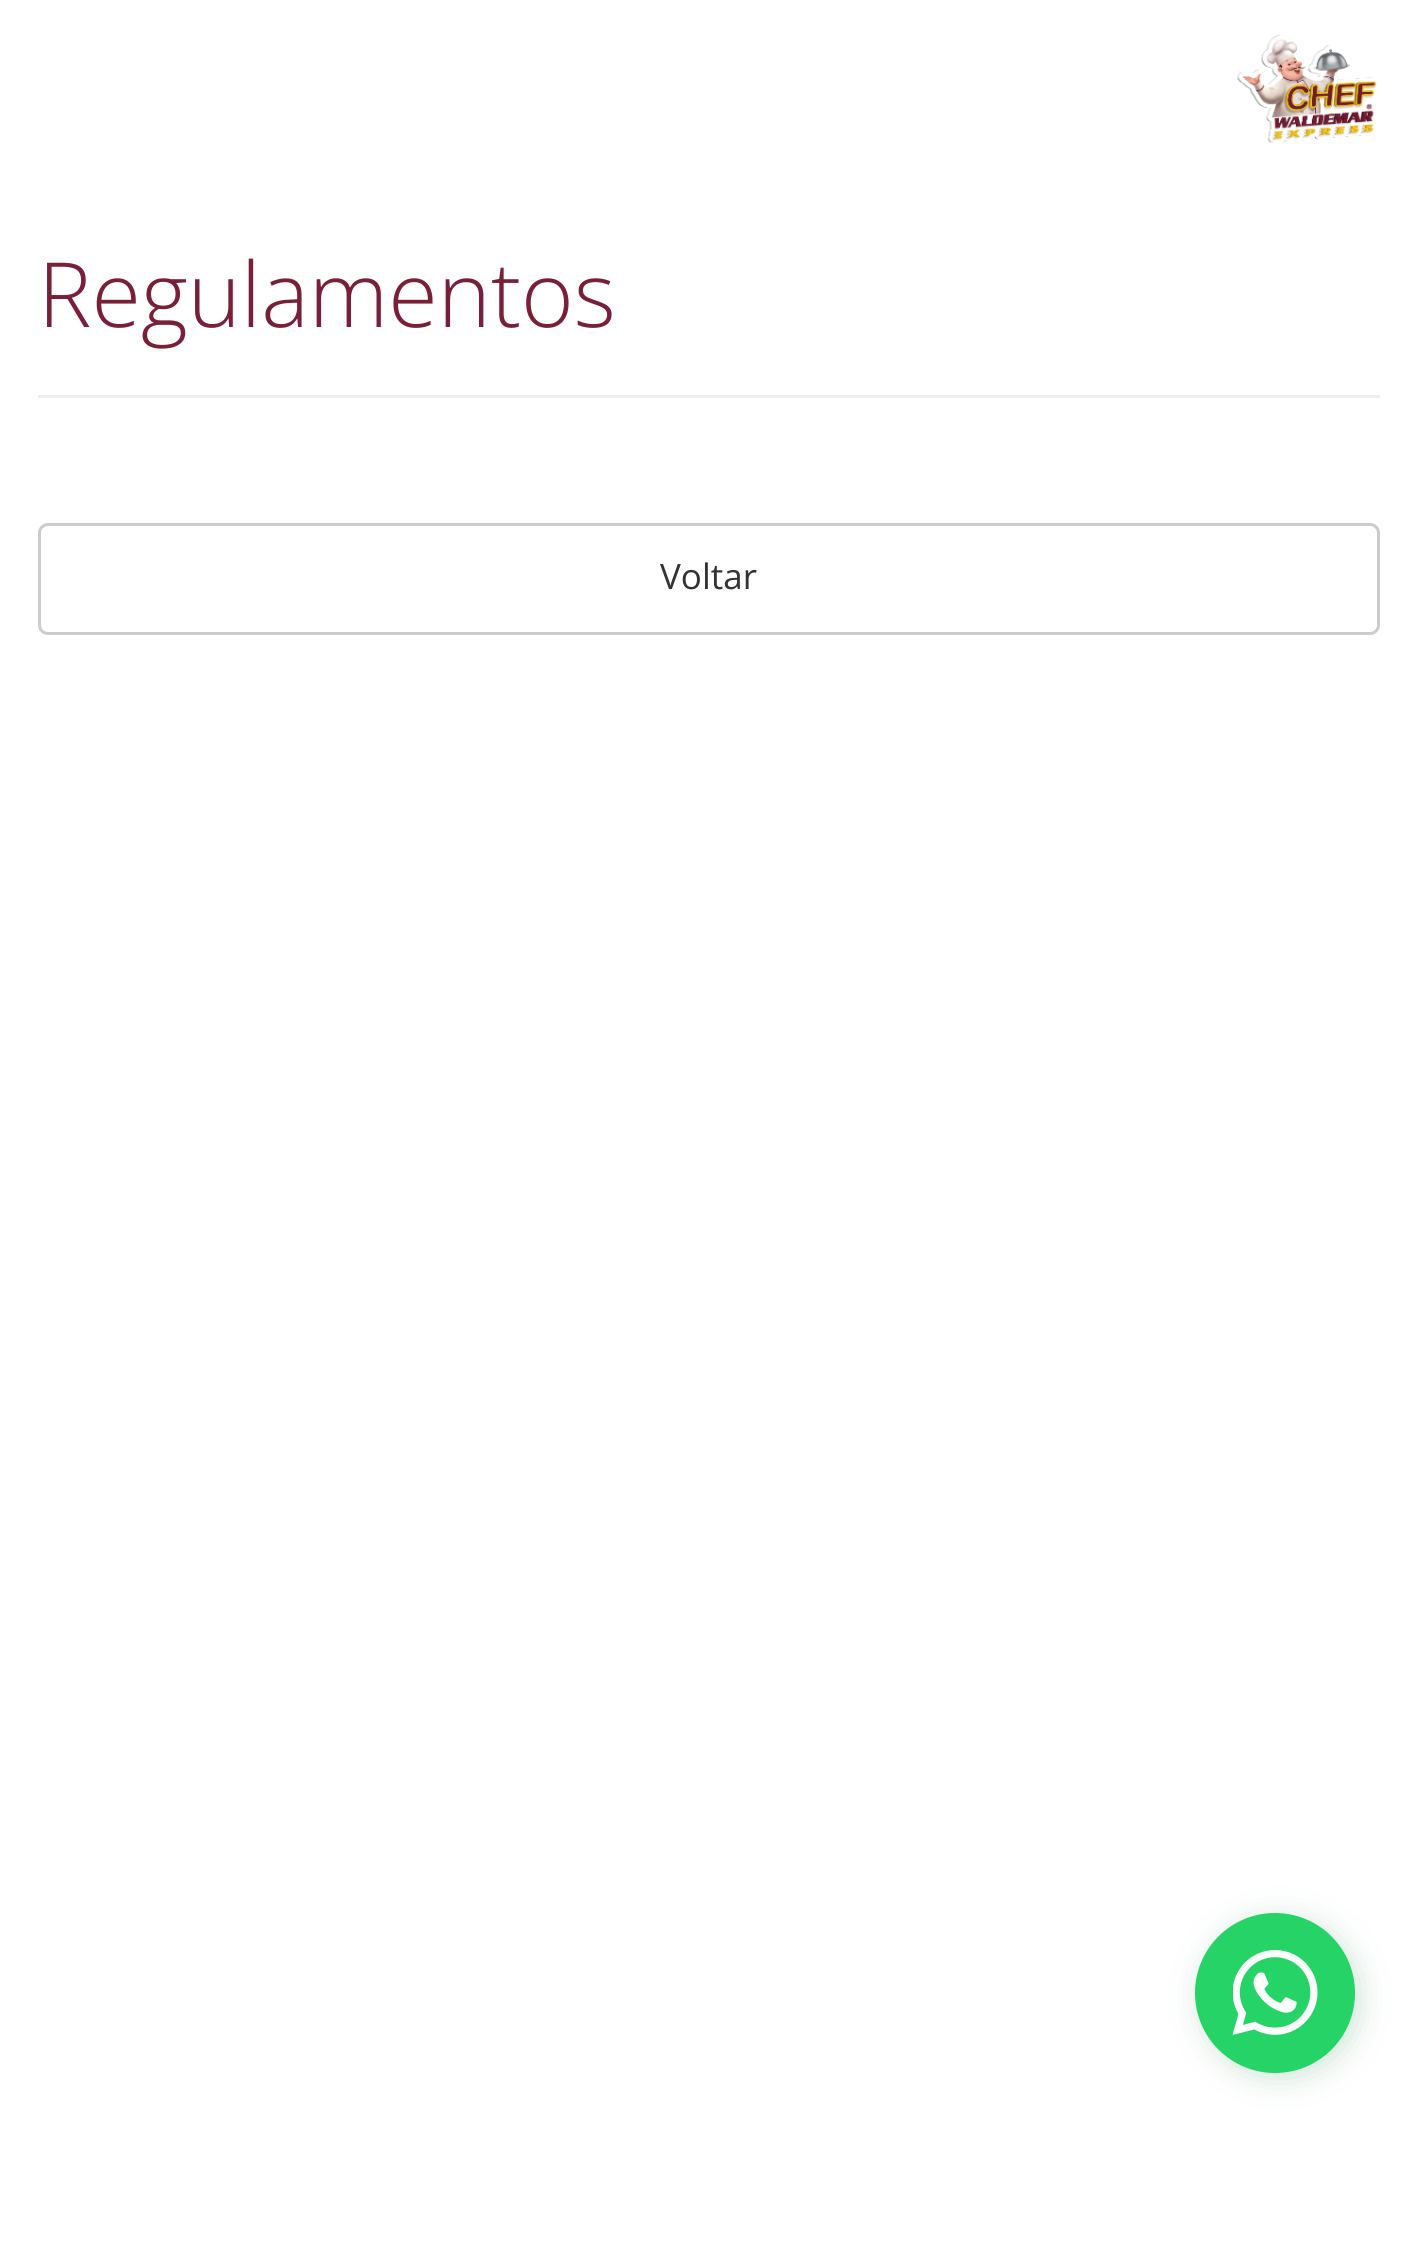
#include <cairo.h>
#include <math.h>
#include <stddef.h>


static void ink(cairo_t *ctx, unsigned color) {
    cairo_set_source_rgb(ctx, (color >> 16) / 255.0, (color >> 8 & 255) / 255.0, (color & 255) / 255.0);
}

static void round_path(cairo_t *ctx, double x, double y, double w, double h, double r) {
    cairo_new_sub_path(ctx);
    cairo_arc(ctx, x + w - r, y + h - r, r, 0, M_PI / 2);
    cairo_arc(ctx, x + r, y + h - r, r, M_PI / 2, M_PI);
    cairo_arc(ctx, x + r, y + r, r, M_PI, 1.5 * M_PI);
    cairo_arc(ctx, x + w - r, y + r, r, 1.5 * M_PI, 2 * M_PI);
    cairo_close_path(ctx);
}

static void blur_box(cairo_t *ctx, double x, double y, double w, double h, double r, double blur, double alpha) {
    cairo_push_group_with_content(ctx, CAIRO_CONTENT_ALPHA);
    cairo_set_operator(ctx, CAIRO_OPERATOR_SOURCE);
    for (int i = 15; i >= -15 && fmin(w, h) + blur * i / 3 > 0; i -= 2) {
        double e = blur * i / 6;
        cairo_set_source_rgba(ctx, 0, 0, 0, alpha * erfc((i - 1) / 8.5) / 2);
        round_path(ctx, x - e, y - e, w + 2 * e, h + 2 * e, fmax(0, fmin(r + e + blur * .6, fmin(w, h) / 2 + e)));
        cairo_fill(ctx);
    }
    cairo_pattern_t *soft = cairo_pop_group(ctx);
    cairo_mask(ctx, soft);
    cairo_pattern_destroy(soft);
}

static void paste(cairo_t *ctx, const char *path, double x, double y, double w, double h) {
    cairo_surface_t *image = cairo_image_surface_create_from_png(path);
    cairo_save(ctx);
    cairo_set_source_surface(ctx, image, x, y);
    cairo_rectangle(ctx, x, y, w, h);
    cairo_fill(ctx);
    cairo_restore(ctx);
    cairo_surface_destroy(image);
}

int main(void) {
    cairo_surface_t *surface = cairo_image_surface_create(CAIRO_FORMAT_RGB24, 1416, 2259);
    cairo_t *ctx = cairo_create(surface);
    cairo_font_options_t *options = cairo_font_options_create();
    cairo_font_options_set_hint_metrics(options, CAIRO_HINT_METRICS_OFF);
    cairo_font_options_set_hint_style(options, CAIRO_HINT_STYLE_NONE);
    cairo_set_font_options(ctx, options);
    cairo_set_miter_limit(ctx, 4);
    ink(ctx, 0xFFFFFF);
    cairo_paint(ctx);
    paste(ctx, "media/1.png", 1237, 35, 140, 108);
    cairo_select_font_face(ctx, "Open Sans Light", CAIRO_FONT_SLANT_NORMAL, CAIRO_FONT_WEIGHT_NORMAL);
    cairo_set_font_size(ctx, 90);
    ink(ctx, 0x782037);
    cairo_move_to(ctx, 38, 327);
    cairo_show_text(ctx, "Regulamentos");
    ink(ctx, 0xEEEEEE);
    cairo_rectangle(ctx, 38, 395, 1342, 3);
    cairo_fill(ctx);
    round_path(ctx, 39.5, 524.5, 1339, 109, 8.5);
    ink(ctx, 0xCCCCCC);
    cairo_set_line_width(ctx, 3);
    cairo_stroke(ctx);
    cairo_select_font_face(ctx, "Open Sans", CAIRO_FONT_SLANT_NORMAL, CAIRO_FONT_WEIGHT_NORMAL);
    cairo_set_font_size(ctx, 35);
    ink(ctx, 0x333333);
    cairo_move_to(ctx, 660, 589);
    cairo_show_text(ctx, "Voltar");
    ink(ctx, 0x167C3C);
    blur_box(ctx, 1200, 1918, 160, 160, 80, 15, 0.2);
    ink(ctx, 0x25D366);
    cairo_arc(ctx, 1275, 1993, 80, 0, 2 * M_PI);
    cairo_fill(ctx);
    paste(ctx, "media/2.png", 1233, 1950, 85, 85);
    cairo_surface_write_to_png(surface, "image.png");
    cairo_font_options_destroy(options);
    cairo_destroy(ctx);
    cairo_surface_destroy(surface);
    return 0;
}
